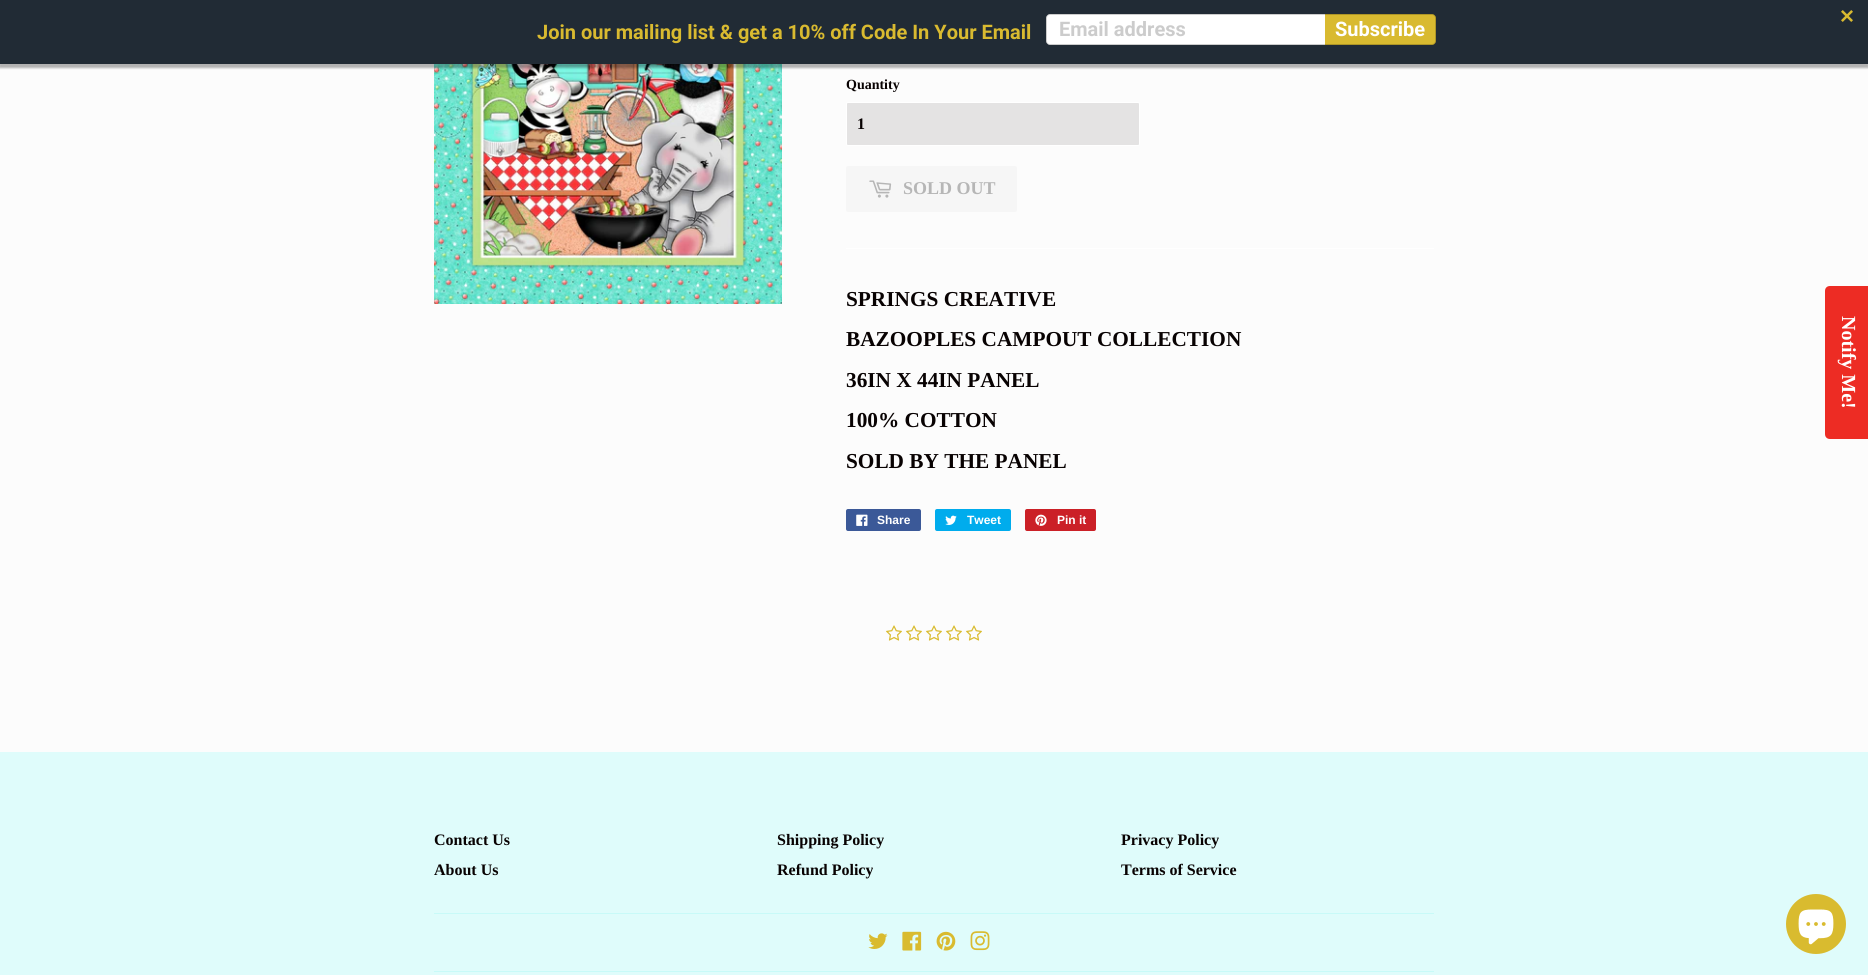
#include <cairo.h>
#include <math.h>
#include <stddef.h>

typedef struct { double x, y; const char *s; } line_t;

static void ink(cairo_t *ctx, unsigned color) {
    cairo_set_source_rgb(ctx, (color >> 16) / 255.0, (color >> 8 & 255) / 255.0, (color & 255) / 255.0);
}

static void round_path(cairo_t *ctx, double x, double y, double w, double h, double r) {
    cairo_new_sub_path(ctx);
    cairo_arc(ctx, x + w - r, y + h - r, r, 0, M_PI / 2);
    cairo_arc(ctx, x + r, y + h - r, r, M_PI / 2, M_PI);
    cairo_arc(ctx, x + r, y + r, r, M_PI, 1.5 * M_PI);
    cairo_arc(ctx, x + w - r, y + r, r, 1.5 * M_PI, 2 * M_PI);
    cairo_close_path(ctx);
}

static void blur_box(cairo_t *ctx, double x, double y, double w, double h, double r, double blur, double alpha) {
    cairo_push_group_with_content(ctx, CAIRO_CONTENT_ALPHA);
    cairo_set_operator(ctx, CAIRO_OPERATOR_SOURCE);
    for (int i = 15; i >= -15 && fmin(w, h) + blur * i / 3 > 0; i -= 2) {
        double e = blur * i / 6;
        cairo_set_source_rgba(ctx, 0, 0, 0, alpha * erfc((i - 1) / 8.5) / 2);
        round_path(ctx, x - e, y - e, w + 2 * e, h + 2 * e, fmax(0, fmin(r + e + blur * .6, fmin(w, h) / 2 + e)));
        cairo_fill(ctx);
    }
    cairo_pattern_t *soft = cairo_pop_group(ctx);
    cairo_mask(ctx, soft);
    cairo_pattern_destroy(soft);
}

static void paste(cairo_t *ctx, const char *path, double x, double y, double w, double h) {
    cairo_surface_t *image = cairo_image_surface_create_from_png(path);
    cairo_save(ctx);
    cairo_set_source_surface(ctx, image, x, y);
    cairo_rectangle(ctx, x, y, w, h);
    cairo_fill(ctx);
    cairo_restore(ctx);
    cairo_surface_destroy(image);
}

int main(void) {
    cairo_surface_t *surface = cairo_image_surface_create(CAIRO_FORMAT_RGB24, 1868, 975);
    cairo_t *ctx = cairo_create(surface);
    cairo_font_options_t *options = cairo_font_options_create();
    cairo_font_options_set_hint_metrics(options, CAIRO_HINT_METRICS_OFF);
    cairo_font_options_set_hint_style(options, CAIRO_HINT_STYLE_NONE);
    cairo_set_font_options(ctx, options);
    cairo_set_miter_limit(ctx, 4);
    ink(ctx, 0xFCFCFC);
    cairo_paint(ctx);
    paste(ctx, "media/2.png", 434, 64, 348, 240);
    ink(ctx, 0x000000);
    blur_box(ctx, -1, 2, 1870, 66, 0, 1, 0.3);
    ink(ctx, 0x212B35);
    cairo_rectangle(ctx, 0, 0, 1868, 64);
    cairo_fill(ctx);
    paste(ctx, "media/1.png", 1841, 10, 12, 12);
    cairo_select_font_face(ctx, "Roboto", CAIRO_FONT_SLANT_NORMAL, CAIRO_FONT_WEIGHT_BOLD);
    cairo_set_font_size(ctx, 20);
    ink(ctx, 0xD9BA30);
    cairo_move_to(ctx, 537, 39);
    cairo_show_text(ctx, "Join our mailing list & get a 10% off Code In Your Email");
    ink(ctx, 0xFFFFFF);
    cairo_new_path(ctx);
    cairo_move_to(ctx, 1050, 14);
    cairo_line_to(ctx, 1325, 14);
    cairo_line_to(ctx, 1325, 45);
    cairo_line_to(ctx, 1050, 45);
    cairo_curve_to(ctx, 1048, 45, 1046, 43, 1046, 41);
    cairo_line_to(ctx, 1046, 18);
    cairo_curve_to(ctx, 1046, 16, 1048, 14, 1050, 14);
    cairo_close_path(ctx);
    cairo_fill(ctx);
    cairo_set_source_rgba(ctx, 0, 0, 0, 0.2);
    cairo_set_fill_rule(ctx, CAIRO_FILL_RULE_EVEN_ODD);
    cairo_new_path(ctx);
    cairo_move_to(ctx, 1050, 14);
    cairo_line_to(ctx, 1325, 14);
    cairo_line_to(ctx, 1325, 45);
    cairo_line_to(ctx, 1050, 45);
    cairo_curve_to(ctx, 1048, 45, 1046, 43, 1046, 41);
    cairo_line_to(ctx, 1046, 18);
    cairo_curve_to(ctx, 1046, 16, 1048, 14, 1050, 14);
    cairo_close_path(ctx);
    cairo_move_to(ctx, 1050, 15);
    cairo_line_to(ctx, 1325, 15);
    cairo_line_to(ctx, 1325, 44);
    cairo_line_to(ctx, 1050, 44);
    cairo_curve_to(ctx, 1048, 44, 1047, 43, 1047, 41);
    cairo_line_to(ctx, 1047, 18);
    cairo_curve_to(ctx, 1047, 16, 1048, 15, 1050, 15);
    cairo_close_path(ctx);
    cairo_fill(ctx);
    ink(ctx, 0xCCCCCC);
    cairo_move_to(ctx, 1059, 36);
    cairo_show_text(ctx, "Email address");
    ink(ctx, 0xD9BA30);
    cairo_new_path(ctx);
    cairo_move_to(ctx, 1325, 14);
    cairo_line_to(ctx, 1432, 14);
    cairo_curve_to(ctx, 1434, 14, 1436, 16, 1436, 18);
    cairo_line_to(ctx, 1436, 41);
    cairo_curve_to(ctx, 1436, 43, 1434, 45, 1432, 45);
    cairo_line_to(ctx, 1325, 45);
    cairo_close_path(ctx);
    cairo_fill(ctx);
    cairo_set_source_rgba(ctx, 0, 0, 0, 0.2);
    cairo_new_path(ctx);
    cairo_move_to(ctx, 1325, 14);
    cairo_line_to(ctx, 1432, 14);
    cairo_curve_to(ctx, 1434, 14, 1436, 16, 1436, 18);
    cairo_line_to(ctx, 1436, 41);
    cairo_curve_to(ctx, 1436, 43, 1434, 45, 1432, 45);
    cairo_line_to(ctx, 1325, 45);
    cairo_close_path(ctx);
    cairo_move_to(ctx, 1325, 15);
    cairo_line_to(ctx, 1432, 15);
    cairo_curve_to(ctx, 1434, 15, 1435, 16, 1435, 18);
    cairo_line_to(ctx, 1435, 41);
    cairo_curve_to(ctx, 1435, 43, 1434, 44, 1432, 44);
    cairo_line_to(ctx, 1325, 44);
    cairo_close_path(ctx);
    cairo_fill(ctx);
    ink(ctx, 0xFFFFFF);
    cairo_move_to(ctx, 1335, 36);
    cairo_show_text(ctx, "Subscribe");
    cairo_select_font_face(ctx, "Liberation Serif", CAIRO_FONT_SLANT_NORMAL, CAIRO_FONT_WEIGHT_BOLD);
    cairo_set_font_size(ctx, 14);
    ink(ctx, 0x080202);
    cairo_move_to(ctx, 846, 89);
    cairo_show_text(ctx, "Quantity");
    ink(ctx, 0xE4E3E3);
    round_path(ctx, 846.5, 102.5, 293, 43, 1.5);
    cairo_fill_preserve(ctx);
    ink(ctx, 0xFFFFFF);
    cairo_set_line_width(ctx, 1);
    cairo_stroke(ctx);
    cairo_set_font_size(ctx, 16);
    ink(ctx, 0x080202);
    cairo_move_to(ctx, 857, 129);
    cairo_show_text(ctx, "1");
    ink(ctx, 0xF6F6F6);
    round_path(ctx, 846, 166, 171, 46, 2);
    cairo_fill(ctx);
    paste(ctx, "media/3.png", 869, 180, 23, 18);
    cairo_set_font_size(ctx, 18);
    ink(ctx, 0xB6B6B6);
    cairo_move_to(ctx, 903, 194);
    cairo_show_text(ctx, "SOLD OUT");
    ink(ctx, 0xFFFFFF);
    cairo_rectangle(ctx, 846, 248, 588, 1);
    cairo_fill(ctx);
    cairo_set_font_size(ctx, 21.3);
    ink(ctx, 0x080202);
    {
        static const line_t items[] = {
            {846, 306, "SPRINGS CREATIVE"},
            {846, 346, "BAZOOPLES CAMPOUT COLLECTION"},
            {846, 387, "36IN X 44IN PANEL"},
            {846, 427, "100% COTTON"},
            {846, 468, "SOLD BY THE PANEL"},
        };
        for (size_t i = 0; i < sizeof items / sizeof *items; i++) {
            cairo_move_to(ctx, items[i].x, items[i].y);
            cairo_show_text(ctx, items[i].s);
        }
    }
    ink(ctx, 0x3B5998);
    round_path(ctx, 846, 509, 75, 22, 2);
    cairo_fill(ctx);
    paste(ctx, "media/4.png", 856, 514, 12, 12);
    cairo_select_font_face(ctx, "Liberation Sans", CAIRO_FONT_SLANT_NORMAL, CAIRO_FONT_WEIGHT_BOLD);
    cairo_set_font_size(ctx, 12);
    ink(ctx, 0xFFFFFF);
    cairo_move_to(ctx, 877, 524);
    cairo_show_text(ctx, "Share");
    ink(ctx, 0x00ACED);
    round_path(ctx, 935, 509, 76, 22, 2);
    cairo_fill(ctx);
    paste(ctx, "media/5.png", 945, 515, 12, 10);
    ink(ctx, 0xFFFFFF);
    cairo_move_to(ctx, 967, 524);
    cairo_show_text(ctx, "Tweet");
    ink(ctx, 0xCB2027);
    round_path(ctx, 1025, 509, 71, 22, 2);
    cairo_fill(ctx);
    paste(ctx, "media/6.png", 1035, 514, 12, 12);
    ink(ctx, 0xFFFFFF);
    cairo_move_to(ctx, 1057, 524);
    cairo_show_text(ctx, "Pin it");
    paste(ctx, "media/7.png", 886, 625, 16, 16);
    paste(ctx, "media/7.png", 906, 625, 16, 16);
    paste(ctx, "media/7.png", 926, 625, 16, 16);
    paste(ctx, "media/7.png", 946, 625, 16, 16);
    paste(ctx, "media/7.png", 966, 625, 16, 16);
    ink(ctx, 0xED2C24);
    cairo_set_fill_rule(ctx, CAIRO_FILL_RULE_WINDING);
    cairo_new_path(ctx);
    cairo_move_to(ctx, 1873, 286);
    cairo_line_to(ctx, 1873, 439);
    cairo_line_to(ctx, 1830, 439);
    cairo_curve_to(ctx, 1827, 439, 1825, 437, 1825, 434);
    cairo_line_to(ctx, 1825, 291);
    cairo_curve_to(ctx, 1825, 288, 1827, 286, 1830, 286);
    cairo_close_path(ctx);
    cairo_fill(ctx);
    cairo_select_font_face(ctx, "Liberation Serif", CAIRO_FONT_SLANT_NORMAL, CAIRO_FONT_WEIGHT_BOLD);
    cairo_set_font_size(ctx, 20);
    ink(ctx, 0xFFFFFF);
    cairo_save(ctx);
    cairo_translate(ctx, 1842, 316);
    cairo_rotate(ctx, 90 * M_PI / 180);
    cairo_move_to(ctx, 0, 0);
    cairo_show_text(ctx, "Notify Me!");
    cairo_restore(ctx);
    ink(ctx, 0xDFFCFB);
    cairo_rectangle(ctx, 0, 752, 1868, 223);
    cairo_fill(ctx);
    cairo_set_font_size(ctx, 16);
    ink(ctx, 0x080202);
    {
        static const line_t items[] = {
            {434, 845, "Contact Us"},
            {434, 875, "About Us"},
            {777, 845, "Shipping Policy"},
            {777, 875, "Refund Policy"},
            {1121, 845, "Privacy Policy"},
            {1121, 875, "Terms of Service"},
        };
        for (size_t i = 0; i < sizeof items / sizeof *items; i++) {
            cairo_move_to(ctx, items[i].x, items[i].y);
            cairo_show_text(ctx, items[i].s);
        }
    }
    ink(ctx, 0xC8FAF8);
    cairo_rectangle(ctx, 434, 913, 1000, 1);
    cairo_fill(ctx);
    paste(ctx, "media/8.png", 868, 933, 20, 16);
    paste(ctx, "media/9.png", 902, 931, 20, 20);
    paste(ctx, "media/10.png", 936, 931, 20, 20);
    paste(ctx, "media/11.png", 970, 931, 20, 20);
    cairo_rectangle(ctx, 434, 971, 1000, 1);
    cairo_fill(ctx);
    ink(ctx, 0xD9BB2F);
    cairo_arc(ctx, 1816, 924, 30, 0, 2 * M_PI);
    cairo_fill(ctx);
    paste(ctx, "media/12.png", 1798, 909, 36, 36);
    cairo_surface_write_to_png(surface, "image.png");
    cairo_font_options_destroy(options);
    cairo_destroy(ctx);
    cairo_surface_destroy(surface);
    return 0;
}
